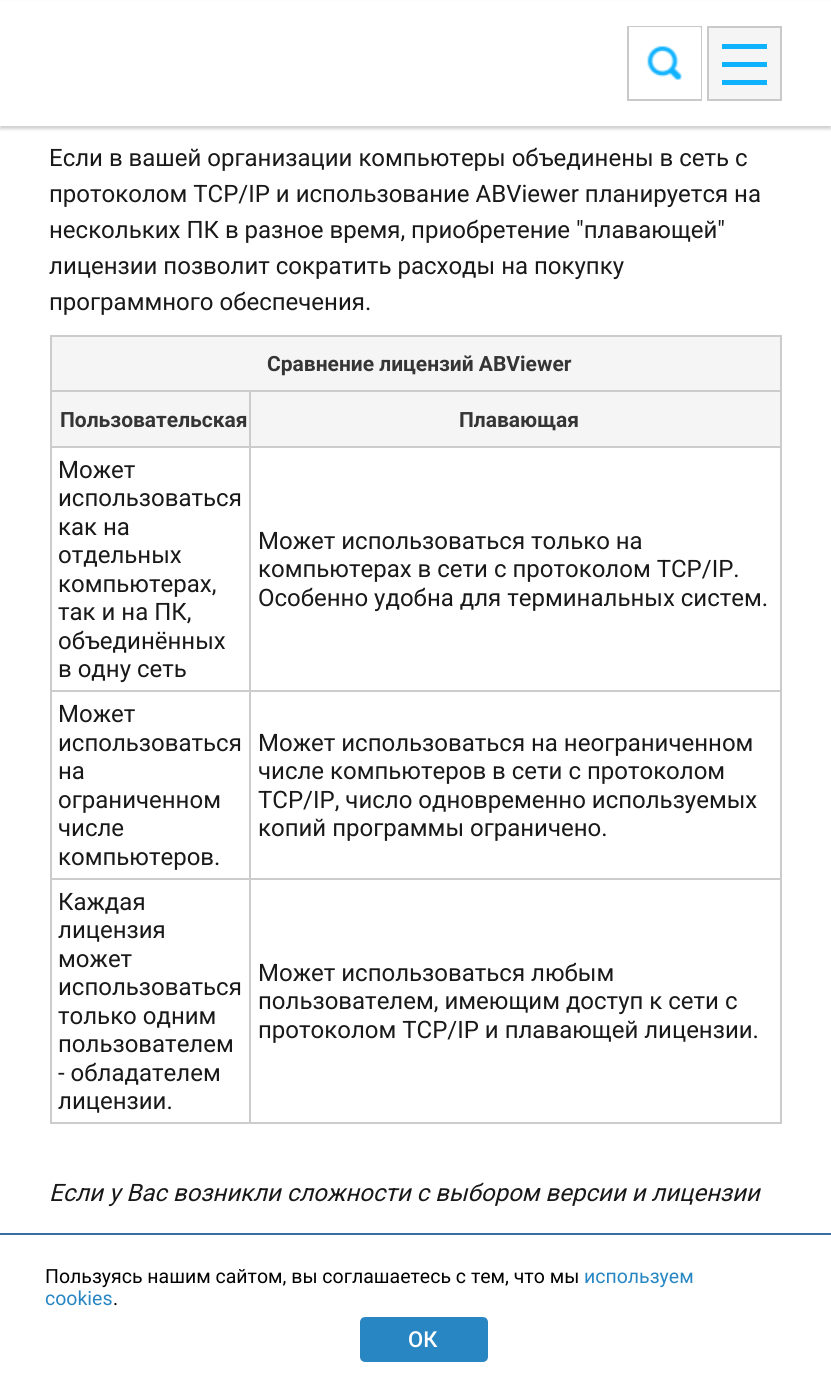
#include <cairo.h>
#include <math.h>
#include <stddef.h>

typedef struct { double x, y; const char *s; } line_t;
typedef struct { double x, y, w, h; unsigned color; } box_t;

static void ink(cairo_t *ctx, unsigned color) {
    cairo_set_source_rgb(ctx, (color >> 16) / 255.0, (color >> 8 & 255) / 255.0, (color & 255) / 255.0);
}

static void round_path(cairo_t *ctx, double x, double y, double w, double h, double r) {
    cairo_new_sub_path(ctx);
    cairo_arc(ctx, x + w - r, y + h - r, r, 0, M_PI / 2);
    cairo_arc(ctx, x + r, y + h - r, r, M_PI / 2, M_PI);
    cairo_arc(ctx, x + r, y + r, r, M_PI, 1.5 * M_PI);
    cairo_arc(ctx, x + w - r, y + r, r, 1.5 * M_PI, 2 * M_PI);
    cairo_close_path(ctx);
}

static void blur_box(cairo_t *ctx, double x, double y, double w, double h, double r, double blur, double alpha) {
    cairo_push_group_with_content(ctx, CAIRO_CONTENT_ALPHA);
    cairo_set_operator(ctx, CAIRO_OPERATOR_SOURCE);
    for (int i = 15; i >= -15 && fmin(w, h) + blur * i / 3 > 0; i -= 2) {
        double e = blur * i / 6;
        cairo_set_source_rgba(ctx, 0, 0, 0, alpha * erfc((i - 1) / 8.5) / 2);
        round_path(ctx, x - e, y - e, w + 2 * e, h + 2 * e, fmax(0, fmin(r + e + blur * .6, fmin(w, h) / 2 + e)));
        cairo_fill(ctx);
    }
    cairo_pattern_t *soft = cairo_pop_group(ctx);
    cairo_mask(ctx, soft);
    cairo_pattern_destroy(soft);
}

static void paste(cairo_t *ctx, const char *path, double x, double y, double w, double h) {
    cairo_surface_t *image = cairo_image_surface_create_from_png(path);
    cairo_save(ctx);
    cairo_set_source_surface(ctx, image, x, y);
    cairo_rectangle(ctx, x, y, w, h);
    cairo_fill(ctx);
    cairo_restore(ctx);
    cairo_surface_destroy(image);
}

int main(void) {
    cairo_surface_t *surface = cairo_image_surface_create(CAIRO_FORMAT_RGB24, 831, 1392);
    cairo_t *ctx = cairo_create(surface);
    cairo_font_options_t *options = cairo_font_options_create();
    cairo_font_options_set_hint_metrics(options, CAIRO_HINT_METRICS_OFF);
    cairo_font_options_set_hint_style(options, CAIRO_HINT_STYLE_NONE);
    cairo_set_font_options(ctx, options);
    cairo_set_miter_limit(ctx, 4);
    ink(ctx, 0xFFFFFF);
    cairo_paint(ctx);
    ink(ctx, 0xD0D0D0);
    blur_box(ctx, 0, 3, 831, 126, 0, 1.5, 1);
    ink(ctx, 0xFFFFFF);
    cairo_rectangle(ctx, 0, 1, 831, 125);
    cairo_fill(ctx);
    cairo_rectangle(ctx, 628, 27, 73, 73);
    ink(ctx, 0xC9C9C9);
    cairo_stroke(ctx);
    cairo_save(ctx);
    cairo_rectangle(ctx, 629, 27, 72, 72);
    cairo_clip(ctx);
    ink(ctx, 0xFFFFFF);
    round_path(ctx, 402, 26, 300, 75, 5);
    cairo_fill(ctx);
    cairo_restore(ctx);
    paste(ctx, "media/1.png", 647, 46, 35, 34);
    ink(ctx, 0xF5F5F5);
    cairo_rectangle(ctx, 708, 27, 73, 73);
    cairo_fill_preserve(ctx);
    ink(ctx, 0xC9C9C9);
    cairo_stroke(ctx);
    {
        static const box_t items[] = {
            {722, 44, 45, 5, 0x0FB2FF},
            {722, 62, 45, 5, 0x0FB2FF},
            {722, 80, 45, 5, 0x0FB2FF},
        };
        for (size_t i = 0; i < sizeof items / sizeof *items; i++) {
            ink(ctx, items[i].color);
            cairo_rectangle(ctx, items[i].x, items[i].y, items[i].w, items[i].h);
            cairo_fill(ctx);
        }
    }
    cairo_select_font_face(ctx, "Roboto", CAIRO_FONT_SLANT_NORMAL, CAIRO_FONT_WEIGHT_NORMAL);
    cairo_set_font_size(ctx, 24);
    ink(ctx, 0x191919);
    {
        static const line_t items[] = {
            {49, 166, "Если в вашей организации компьютеры объединены в сеть с"},
            {49, 202, "протоколом TCP/IP и использование ABViewer планируется на"},
            {49, 238, "нескольких ПК в разное время, приобретение \"плавающей\""},
            {49, 274, "лицензии позволит сократить расходы на покупку"},
            {49, 310, "программного обеспечения."},
        };
        for (size_t i = 0; i < sizeof items / sizeof *items; i++) {
            cairo_move_to(ctx, items[i].x, items[i].y);
            cairo_show_text(ctx, items[i].s);
        }
    }
    {
        static const box_t items[] = {
            {50, 335, 732, 2, 0xCCCCCC},
            {50, 390, 732, 2, 0xCCCCCC},
            {50, 446, 732, 2, 0xCCCCCC},
            {50, 690, 732, 2, 0xCCCCCC},
            {50, 878, 732, 2, 0xCCCCCC},
            {780, 878, 2, 246, 0xCCCCCC},
            {780, 690, 2, 189, 0xCCCCCC},
            {780, 446, 2, 246, 0xCCCCCC},
            {780, 390, 2, 57, 0xCCCCCC},
            {780, 335, 2, 57, 0xCCCCCC},
            {50, 1122, 732, 2, 0xCCCCCC},
            {50, 878, 2, 246, 0xCCCCCC},
            {50, 690, 2, 189, 0xCCCCCC},
            {50, 446, 2, 246, 0xCCCCCC},
            {50, 390, 2, 57, 0xCCCCCC},
            {50, 335, 2, 57, 0xCCCCCC},
            {52, 337, 728, 53, 0xF5F5F5},
        };
        for (size_t i = 0; i < sizeof items / sizeof *items; i++) {
            ink(ctx, items[i].color);
            cairo_rectangle(ctx, items[i].x, items[i].y, items[i].w, items[i].h);
            cairo_fill(ctx);
        }
    }
    cairo_select_font_face(ctx, "Roboto", CAIRO_FONT_SLANT_NORMAL, CAIRO_FONT_WEIGHT_BOLD);
    cairo_set_font_size(ctx, 21);
    ink(ctx, 0x353535);
    cairo_move_to(ctx, 267, 371);
    cairo_show_text(ctx, "Сравнение лицензий ABViewer");
    ink(ctx, 0xF5F5F5);
    cairo_rectangle(ctx, 52, 392, 197, 54);
    cairo_fill(ctx);
    ink(ctx, 0x353535);
    cairo_move_to(ctx, 60, 427);
    cairo_show_text(ctx, "Пользовательская");
    ink(ctx, 0xF5F5F5);
    cairo_rectangle(ctx, 251, 392, 529, 54);
    cairo_fill(ctx);
    ink(ctx, 0x353535);
    cairo_move_to(ctx, 459, 427);
    cairo_show_text(ctx, "Плавающая");
    cairo_select_font_face(ctx, "Roboto", CAIRO_FONT_SLANT_NORMAL, CAIRO_FONT_WEIGHT_NORMAL);
    cairo_set_font_size(ctx, 24);
    ink(ctx, 0x191919);
    {
        static const line_t items[] = {
            {58, 478, "Может"},
            {58, 506, "использоваться"},
            {58, 535, "как на"},
            {58, 563, "отдельных"},
            {58, 592, "компьютерах,"},
            {58, 620, "так и на ПК,"},
            {58, 649, "объединённых"},
            {58, 677, "в одну сеть"},
            {258, 549, "Может использоваться только на"},
            {258, 577, "компьютерах в сети с протоколом TCP/IP."},
            {258, 606, "Особенно удобна для терминальных систем."},
            {58, 722, "Может"},
            {58, 751, "использоваться"},
            {58, 779, "на"},
            {58, 808, "ограниченном"},
            {58, 836, "числе"},
            {58, 865, "компьютеров."},
            {258, 751, "Может использоваться на неограниченном"},
            {258, 779, "числе компьютеров в сети с протоколом"},
            {258, 808, "TCP/IP, число одновременно используемых"},
            {258, 836, "копий программы ограничено."},
            {58, 910, "Каждая"},
            {58, 938, "лицензия"},
            {58, 967, "может"},
            {58, 995, "использоваться"},
            {58, 1024, "только одним"},
            {58, 1052, "пользователем"},
            {58, 1081, "- обладателем"},
            {58, 1109, "лицензии."},
        };
        for (size_t i = 0; i < sizeof items / sizeof *items; i++) {
            cairo_move_to(ctx, items[i].x, items[i].y);
            cairo_show_text(ctx, items[i].s);
        }
    }
    ink(ctx, 0xCCCCCC);
    cairo_rectangle(ctx, 249, 390, 2, 734);
    cairo_fill(ctx);
    ink(ctx, 0x191919);
    {
        static const line_t items[] = {
            {258, 981, "Может использоваться любым"},
            {258, 1009, "пользователем, имеющим доступ к сети с"},
            {258, 1038, "протоколом TCP/IP и плавающей лицензии."},
        };
        for (size_t i = 0; i < sizeof items / sizeof *items; i++) {
            cairo_move_to(ctx, items[i].x, items[i].y);
            cairo_show_text(ctx, items[i].s);
        }
    }
    cairo_select_font_face(ctx, "Roboto", CAIRO_FONT_SLANT_ITALIC, CAIRO_FONT_WEIGHT_NORMAL);
    cairo_move_to(ctx, 49, 1201);
    cairo_show_text(ctx, "Если у Вас возникли сложности с выбором версии и лицензии");
    ink(ctx, 0x3A6DA1);
    cairo_rectangle(ctx, 0, 1233, 831, 2);
    cairo_fill(ctx);
    cairo_select_font_face(ctx, "Roboto", CAIRO_FONT_SLANT_NORMAL, CAIRO_FONT_WEIGHT_NORMAL);
    cairo_set_font_size(ctx, 19.5);
    ink(ctx, 0x000000);
    cairo_move_to(ctx, 45, 1283);
    cairo_show_text(ctx, "Пользуясь нашим сайтом, вы соглашаетесь с тем, что мы");
    ink(ctx, 0x2886C3);
    cairo_move_to(ctx, 584, 1283);
    cairo_show_text(ctx, "используем");
    cairo_move_to(ctx, 45, 1305);
    cairo_show_text(ctx, "cookies");
    ink(ctx, 0x000000);
    cairo_move_to(ctx, 113, 1305);
    cairo_show_text(ctx, ".");
    ink(ctx, 0x2886C3);
    round_path(ctx, 361.5, 1318.5, 125, 42, 3.5);
    cairo_fill_preserve(ctx);
    cairo_set_line_width(ctx, 3);
    cairo_stroke(ctx);
    cairo_select_font_face(ctx, "Roboto Medium", CAIRO_FONT_SLANT_NORMAL, CAIRO_FONT_WEIGHT_NORMAL);
    cairo_set_font_size(ctx, 22);
    ink(ctx, 0xFFFFFF);
    cairo_move_to(ctx, 408, 1347);
    cairo_show_text(ctx, "ОК");
    cairo_surface_write_to_png(surface, "image.png");
    cairo_font_options_destroy(options);
    cairo_destroy(ctx);
    cairo_surface_destroy(surface);
    return 0;
}
